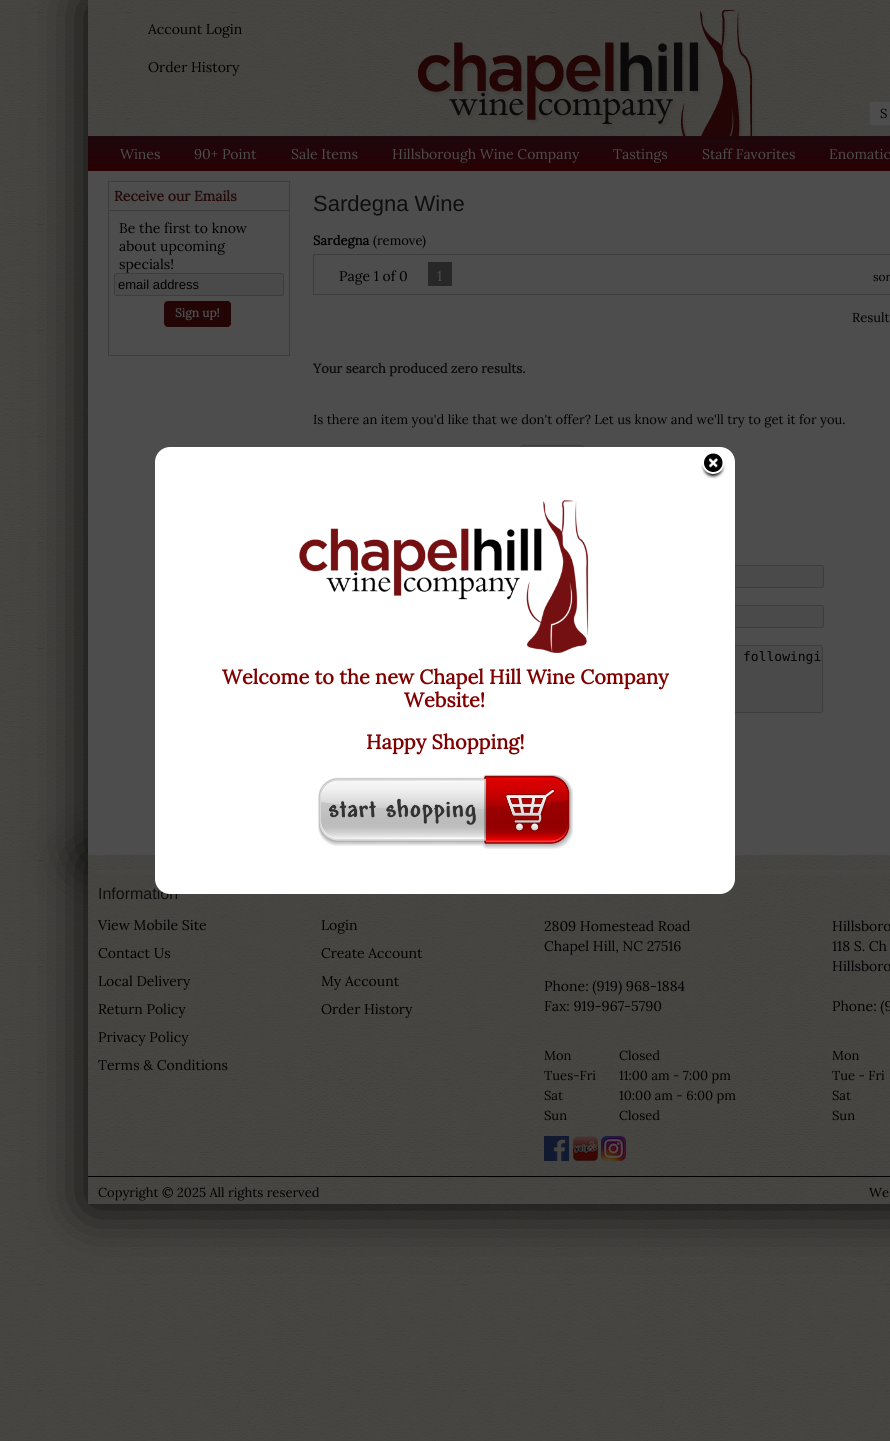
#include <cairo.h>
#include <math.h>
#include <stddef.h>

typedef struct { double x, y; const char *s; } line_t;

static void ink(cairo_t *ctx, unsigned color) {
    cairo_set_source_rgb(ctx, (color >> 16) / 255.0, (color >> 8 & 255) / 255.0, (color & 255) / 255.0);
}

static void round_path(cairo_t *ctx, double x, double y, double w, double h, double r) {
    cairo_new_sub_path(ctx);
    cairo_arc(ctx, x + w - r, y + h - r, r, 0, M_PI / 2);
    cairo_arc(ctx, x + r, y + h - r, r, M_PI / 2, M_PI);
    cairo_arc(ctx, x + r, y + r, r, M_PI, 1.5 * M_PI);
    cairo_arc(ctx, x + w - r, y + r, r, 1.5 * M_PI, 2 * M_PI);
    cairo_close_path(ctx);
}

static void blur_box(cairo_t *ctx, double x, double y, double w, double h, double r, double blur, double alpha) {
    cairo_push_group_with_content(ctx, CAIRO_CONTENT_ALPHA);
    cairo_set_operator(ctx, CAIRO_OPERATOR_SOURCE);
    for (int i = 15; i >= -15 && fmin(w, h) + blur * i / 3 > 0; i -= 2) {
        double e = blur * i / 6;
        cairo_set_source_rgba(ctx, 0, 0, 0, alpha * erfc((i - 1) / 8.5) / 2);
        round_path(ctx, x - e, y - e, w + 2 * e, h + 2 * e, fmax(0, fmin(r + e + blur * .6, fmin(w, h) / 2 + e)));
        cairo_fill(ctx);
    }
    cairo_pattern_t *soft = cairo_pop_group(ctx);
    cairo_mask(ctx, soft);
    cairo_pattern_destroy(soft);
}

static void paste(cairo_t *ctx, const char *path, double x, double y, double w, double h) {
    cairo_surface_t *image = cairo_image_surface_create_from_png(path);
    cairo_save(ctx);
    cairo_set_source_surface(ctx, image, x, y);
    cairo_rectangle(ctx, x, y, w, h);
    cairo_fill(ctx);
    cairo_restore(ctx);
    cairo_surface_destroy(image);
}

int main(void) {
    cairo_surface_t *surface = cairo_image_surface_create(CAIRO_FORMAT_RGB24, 890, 1441);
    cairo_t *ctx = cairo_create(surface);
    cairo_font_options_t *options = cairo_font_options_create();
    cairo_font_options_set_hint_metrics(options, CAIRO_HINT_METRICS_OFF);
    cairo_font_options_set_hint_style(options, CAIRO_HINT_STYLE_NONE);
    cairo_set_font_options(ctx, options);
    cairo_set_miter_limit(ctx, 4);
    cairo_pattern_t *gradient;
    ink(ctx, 0xFFFFFF);
    cairo_paint(ctx);
    paste(ctx, "media/1.png", 0, 0, 890, 1441);
    ink(ctx, 0x000000);
    blur_box(ctx, 88, 2, 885, 855, 0, 27.5, 0.9);
    paste(ctx, "media/2.png", 88, 0, 802, 136);
    cairo_select_font_face(ctx, "Lora", CAIRO_FONT_SLANT_NORMAL, CAIRO_FONT_WEIGHT_NORMAL);
    cairo_set_font_size(ctx, 14);
    ink(ctx, 0x000000);
    cairo_move_to(ctx, 148, 34);
    cairo_show_text(ctx, "Account Login");
    cairo_move_to(ctx, 148, 72);
    cairo_show_text(ctx, "Order History");
    gradient = cairo_pattern_create_linear(573, 136, 573, 171);
    cairo_pattern_add_color_stop_rgba(gradient, 0.01, 0.114, 0.031, 0.051, 1);
    cairo_pattern_add_color_stop_rgba(gradient, 1, 0.157, 0, 0.008, 1);
    cairo_set_source(ctx, gradient);
    cairo_pattern_destroy(gradient);
    cairo_rectangle(ctx, 88, 136, 802, 35);
    cairo_fill(ctx);
    paste(ctx, "media/3.png", 418, 10, 337, 130);
    ink(ctx, 0x4D4D4D);
    round_path(ctx, 869.5, 101.5, 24, 24, 2.5);
    cairo_fill_preserve(ctx);
    ink(ctx, 0x474747);
    cairo_set_line_width(ctx, 1);
    cairo_stroke(ctx);
    cairo_set_font_size(ctx, 13);
    ink(ctx, 0x000000);
    cairo_move_to(ctx, 880, 118);
    cairo_show_text(ctx, "S");
    cairo_set_font_size(ctx, 14);
    ink(ctx, 0x4D4D4D);
    {
        static const line_t items[] = {
            {120, 159, "Wines"},
            {194, 159, "90+ Point"},
            {291, 159, "Sale Items"},
            {392, 159, "Hillsborough Wine Company"},
            {613, 159, "Tastings"},
            {702, 159, "Staff Favorites"},
            {829, 159, "Enomatic"},
        };
        for (size_t i = 0; i < sizeof items / sizeof *items; i++) {
            cairo_move_to(ctx, items[i].x, items[i].y);
            cairo_show_text(ctx, items[i].s);
        }
    }
    ink(ctx, 0x000000);
    blur_box(ctx, 88, 857, 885, 349, 0, 27.5, 0.9);
    ink(ctx, 0x4D4D4D);
    cairo_rectangle(ctx, 88, 171, 802, 684);
    cairo_fill(ctx);
    cairo_rectangle(ctx, 108.5, 181.5, 181, 174);
    ink(ctx, 0x3D3D3D);
    cairo_stroke(ctx);
    cairo_rectangle(ctx, 109, 210, 180, 1);
    cairo_fill(ctx);
    cairo_select_font_face(ctx, "Lora", CAIRO_FONT_SLANT_NORMAL, CAIRO_FONT_WEIGHT_BOLD);
    ink(ctx, 0x240B0B);
    cairo_move_to(ctx, 114, 201);
    cairo_show_text(ctx, "Receive our Emails");
    cairo_select_font_face(ctx, "Lora", CAIRO_FONT_SLANT_NORMAL, CAIRO_FONT_WEIGHT_NORMAL);
    ink(ctx, 0x000000);
    {
        static const line_t items[] = {
            {119, 233, "Be the first to know"},
            {119, 251, "about upcoming"},
            {119, 269, "specials!"},
        };
        for (size_t i = 0; i < sizeof items / sizeof *items; i++) {
            cairo_move_to(ctx, items[i].x, items[i].y);
            cairo_show_text(ctx, items[i].s);
        }
    }
    ink(ctx, 0x4A4A4A);
    round_path(ctx, 114.5, 273.5, 169, 22, 2.5);
    cairo_fill_preserve(ctx);
    ink(ctx, 0x3D3D3D);
    cairo_stroke(ctx);
    cairo_select_font_face(ctx, "Liberation Sans", CAIRO_FONT_SLANT_NORMAL, CAIRO_FONT_WEIGHT_NORMAL);
    cairo_set_font_size(ctx, 13);
    ink(ctx, 0x000000);
    cairo_move_to(ctx, 118, 289);
    cairo_show_text(ctx, "email address");
    ink(ctx, 0x230505);
    round_path(ctx, 164, 301, 67, 26, 4);
    cairo_fill(ctx);
    round_path(ctx, 170, 301, 61, 26, 4);
    cairo_fill(ctx);
    cairo_select_font_face(ctx, "Lora", CAIRO_FONT_SLANT_NORMAL, CAIRO_FONT_WEIGHT_BOLD);
    cairo_set_font_size(ctx, 12);
    ink(ctx, 0x4D4D4D);
    cairo_move_to(ctx, 175, 317);
    cairo_show_text(ctx, "Sign up!");
    cairo_select_font_face(ctx, "Liberation Sans", CAIRO_FONT_SLANT_NORMAL, CAIRO_FONT_WEIGHT_NORMAL);
    cairo_set_font_size(ctx, 22);
    ink(ctx, 0x0E0E0E);
    cairo_move_to(ctx, 313, 211);
    cairo_show_text(ctx, "Sardegna Wine");
    cairo_select_font_face(ctx, "Lora", CAIRO_FONT_SLANT_NORMAL, CAIRO_FONT_WEIGHT_BOLD);
    cairo_set_font_size(ctx, 13);
    ink(ctx, 0x000000);
    cairo_move_to(ctx, 313, 245);
    cairo_show_text(ctx, "Sardegna");
    cairo_select_font_face(ctx, "Lora", CAIRO_FONT_SLANT_NORMAL, CAIRO_FONT_WEIGHT_NORMAL);
    cairo_move_to(ctx, 373, 245);
    cairo_show_text(ctx, "(remove");
    cairo_move_to(ctx, 422, 245);
    cairo_show_text(ctx, ")");
    cairo_rectangle(ctx, 313.5, 254.5, 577, 40);
    ink(ctx, 0x3D3D3D);
    cairo_stroke(ctx);
    cairo_set_font_size(ctx, 14);
    ink(ctx, 0x000000);
    cairo_move_to(ctx, 339, 281);
    cairo_show_text(ctx, "Page 1 of 0");
    ink(ctx, 0x272727);
    cairo_rectangle(ctx, 428, 262, 24, 24);
    cairo_fill(ctx);
    ink(ctx, 0x4D4D4D);
    cairo_move_to(ctx, 437, 281);
    cairo_show_text(ctx, "1");
    cairo_set_font_size(ctx, 12);
    ink(ctx, 0x000000);
    cairo_move_to(ctx, 873, 281);
    cairo_show_text(ctx, "sor");
    cairo_set_font_size(ctx, 13);
    cairo_move_to(ctx, 852, 322);
    cairo_show_text(ctx, "Result");
    cairo_select_font_face(ctx, "Lora", CAIRO_FONT_SLANT_NORMAL, CAIRO_FONT_WEIGHT_BOLD);
    ink(ctx, 0x0E0E0E);
    cairo_move_to(ctx, 313, 373);
    cairo_show_text(ctx, "Your search produced zero results.");
    cairo_select_font_face(ctx, "Lora", CAIRO_FONT_SLANT_NORMAL, CAIRO_FONT_WEIGHT_NORMAL);
    ink(ctx, 0x000000);
    cairo_move_to(ctx, 313, 424);
    cairo_show_text(ctx, "Is there an item you'd like that we don't offer? Let us know and we'll try to get it for you.");
    ink(ctx, 0x4A4A4A);
    round_path(ctx, 520.5, 445.5, 63, 22, 2.5);
    cairo_fill_preserve(ctx);
    ink(ctx, 0x3D3D3D);
    cairo_stroke(ctx);
    ink(ctx, 0x4A4A4A);
    round_path(ctx, 520.5, 565.5, 303, 22, 2.5);
    cairo_fill_preserve(ctx);
    ink(ctx, 0x3D3D3D);
    cairo_stroke(ctx);
    ink(ctx, 0x4A4A4A);
    round_path(ctx, 520.5, 605.5, 303, 22, 2.5);
    cairo_fill_preserve(ctx);
    ink(ctx, 0x3D3D3D);
    cairo_stroke(ctx);
    ink(ctx, 0x4A4A4A);
    round_path(ctx, 520.5, 645.5, 302, 67, 2.5);
    cairo_fill_preserve(ctx);
    ink(ctx, 0x3D3D3D);
    cairo_stroke(ctx);
    cairo_select_font_face(ctx, "DejaVu Sans Mono", CAIRO_FONT_SLANT_NORMAL, CAIRO_FONT_WEIGHT_NORMAL);
    ink(ctx, 0x000000);
    cairo_move_to(ctx, 743, 661);
    cairo_show_text(ctx, "followingi");
    paste(ctx, "media/7.png", 88, 855, 802, 321);
    cairo_select_font_face(ctx, "Liberation Sans", CAIRO_FONT_SLANT_NORMAL, CAIRO_FONT_WEIGHT_NORMAL);
    cairo_set_font_size(ctx, 16);
    ink(ctx, 0x0E0E0E);
    cairo_move_to(ctx, 98, 899);
    cairo_show_text(ctx, "Information");
    ink(ctx, 0xFFFFFF);
    round_path(ctx, 155, 447, 580, 447, 15);
    cairo_fill(ctx);
    paste(ctx, "media/4.png", 701, 453, 24, 26);
    paste(ctx, "media/5.png", 299, 500, 290, 153);
    cairo_select_font_face(ctx, "Lora", CAIRO_FONT_SLANT_NORMAL, CAIRO_FONT_WEIGHT_BOLD);
    cairo_set_font_size(ctx, 20);
    ink(ctx, 0x800000);
    {
        static const line_t items[] = {
            {222, 684, "Welcome to the new Chapel Hill Wine Company"},
            {404, 707, "Website!"},
            {366, 749, "Happy Shopping!"},
        };
        for (size_t i = 0; i < sizeof items / sizeof *items; i++) {
            cairo_move_to(ctx, items[i].x, items[i].y);
            cairo_show_text(ctx, items[i].s);
        }
    }
    paste(ctx, "media/6.png", 318, 774, 256, 75);
    paste(ctx, "media/8.png", 98, 870, 57, 7);
    paste(ctx, "media/9.png", 88, 922, 3, 4);
    cairo_select_font_face(ctx, "Lora", CAIRO_FONT_SLANT_NORMAL, CAIRO_FONT_WEIGHT_NORMAL);
    cairo_set_font_size(ctx, 14);
    ink(ctx, 0x000000);
    cairo_move_to(ctx, 98, 930);
    cairo_show_text(ctx, "View Mobile Site");
    paste(ctx, "media/10.png", 88, 950, 3, 4);
    cairo_move_to(ctx, 98, 958);
    cairo_show_text(ctx, "Contact Us");
    paste(ctx, "media/11.png", 88, 978, 3, 4);
    cairo_move_to(ctx, 98, 986);
    cairo_show_text(ctx, "Local Delivery");
    paste(ctx, "media/12.png", 88, 1006, 3, 4);
    cairo_move_to(ctx, 98, 1014);
    cairo_show_text(ctx, "Return Policy");
    paste(ctx, "media/13.png", 88, 1034, 3, 4);
    cairo_move_to(ctx, 98, 1042);
    cairo_show_text(ctx, "Privacy Policy");
    paste(ctx, "media/14.png", 88, 1062, 3, 4);
    cairo_move_to(ctx, 98, 1070);
    cairo_show_text(ctx, "Terms & Conditions");
    paste(ctx, "media/15.png", 309, 922, 5, 4);
    cairo_move_to(ctx, 321, 930);
    cairo_show_text(ctx, "Login");
    paste(ctx, "media/16.png", 309, 950, 5, 4);
    cairo_move_to(ctx, 321, 958);
    cairo_show_text(ctx, "Create Account");
    paste(ctx, "media/17.png", 309, 978, 5, 4);
    cairo_move_to(ctx, 321, 986);
    cairo_show_text(ctx, "My Account");
    paste(ctx, "media/18.png", 309, 1006, 5, 4);
    cairo_move_to(ctx, 321, 1014);
    cairo_show_text(ctx, "Order History");
    paste(ctx, "media/19.png", 735, 870, 155, 7);
    paste(ctx, "media/20.png", 532, 921, 5, 4);
    {
        static const line_t items[] = {
            {544, 931, "2809 Homestead Road"},
            {544, 951, "Chapel Hill, NC 27516"},
            {544, 991, "Phone: (919) 968-1884"},
            {544, 1011, "Fax: 919-967-5790"},
        };
        for (size_t i = 0; i < sizeof items / sizeof *items; i++) {
            cairo_move_to(ctx, items[i].x, items[i].y);
            cairo_show_text(ctx, items[i].s);
        }
    }
    cairo_set_font_size(ctx, 13);
    {
        static const line_t items[] = {
            {544, 1060, "Mon"},
            {619, 1060, "Closed"},
            {544, 1080, "Tues-Fri"},
            {619, 1080, "11:00 am - 7:00 pm"},
            {544, 1100, "Sat"},
            {619, 1100, "10:00 am - 6:00 pm"},
            {544, 1120, "Sun"},
            {619, 1120, "Closed"},
        };
        for (size_t i = 0; i < sizeof items / sizeof *items; i++) {
            cairo_move_to(ctx, items[i].x, items[i].y);
            cairo_show_text(ctx, items[i].s);
        }
    }
    paste(ctx, "media/21.png", 544, 1136, 25, 25);
    paste(ctx, "media/22.png", 573, 1136, 25, 25);
    paste(ctx, "media/23.png", 601, 1136, 25, 25);
    cairo_set_font_size(ctx, 14);
    {
        static const line_t items[] = {
            {832, 931, "Hillsboro"},
            {832, 951, "118 S. Ch"},
            {832, 971, "Hillsboro"},
            {832, 1011, "Phone: (9"},
        };
        for (size_t i = 0; i < sizeof items / sizeof *items; i++) {
            cairo_move_to(ctx, items[i].x, items[i].y);
            cairo_show_text(ctx, items[i].s);
        }
    }
    cairo_set_font_size(ctx, 13);
    {
        static const line_t items[] = {
            {832, 1060, "Mon"},
            {832, 1080, "Tue - Fri"},
            {832, 1100, "Sat"},
            {832, 1120, "Sun"},
        };
        for (size_t i = 0; i < sizeof items / sizeof *items; i++) {
            cairo_move_to(ctx, items[i].x, items[i].y);
            cairo_show_text(ctx, items[i].s);
        }
    }
    paste(ctx, "media/24.png", 88, 1177, 802, 27);
    cairo_rectangle(ctx, 88, 1176, 802, 1);
    cairo_fill(ctx);
    cairo_move_to(ctx, 98, 1197);
    cairo_show_text(ctx, "Copyright © 2025 All rights reserved");
    cairo_move_to(ctx, 869, 1197);
    cairo_show_text(ctx, "We");
    cairo_surface_write_to_png(surface, "image.png");
    cairo_font_options_destroy(options);
    cairo_destroy(ctx);
    cairo_surface_destroy(surface);
    return 0;
}
